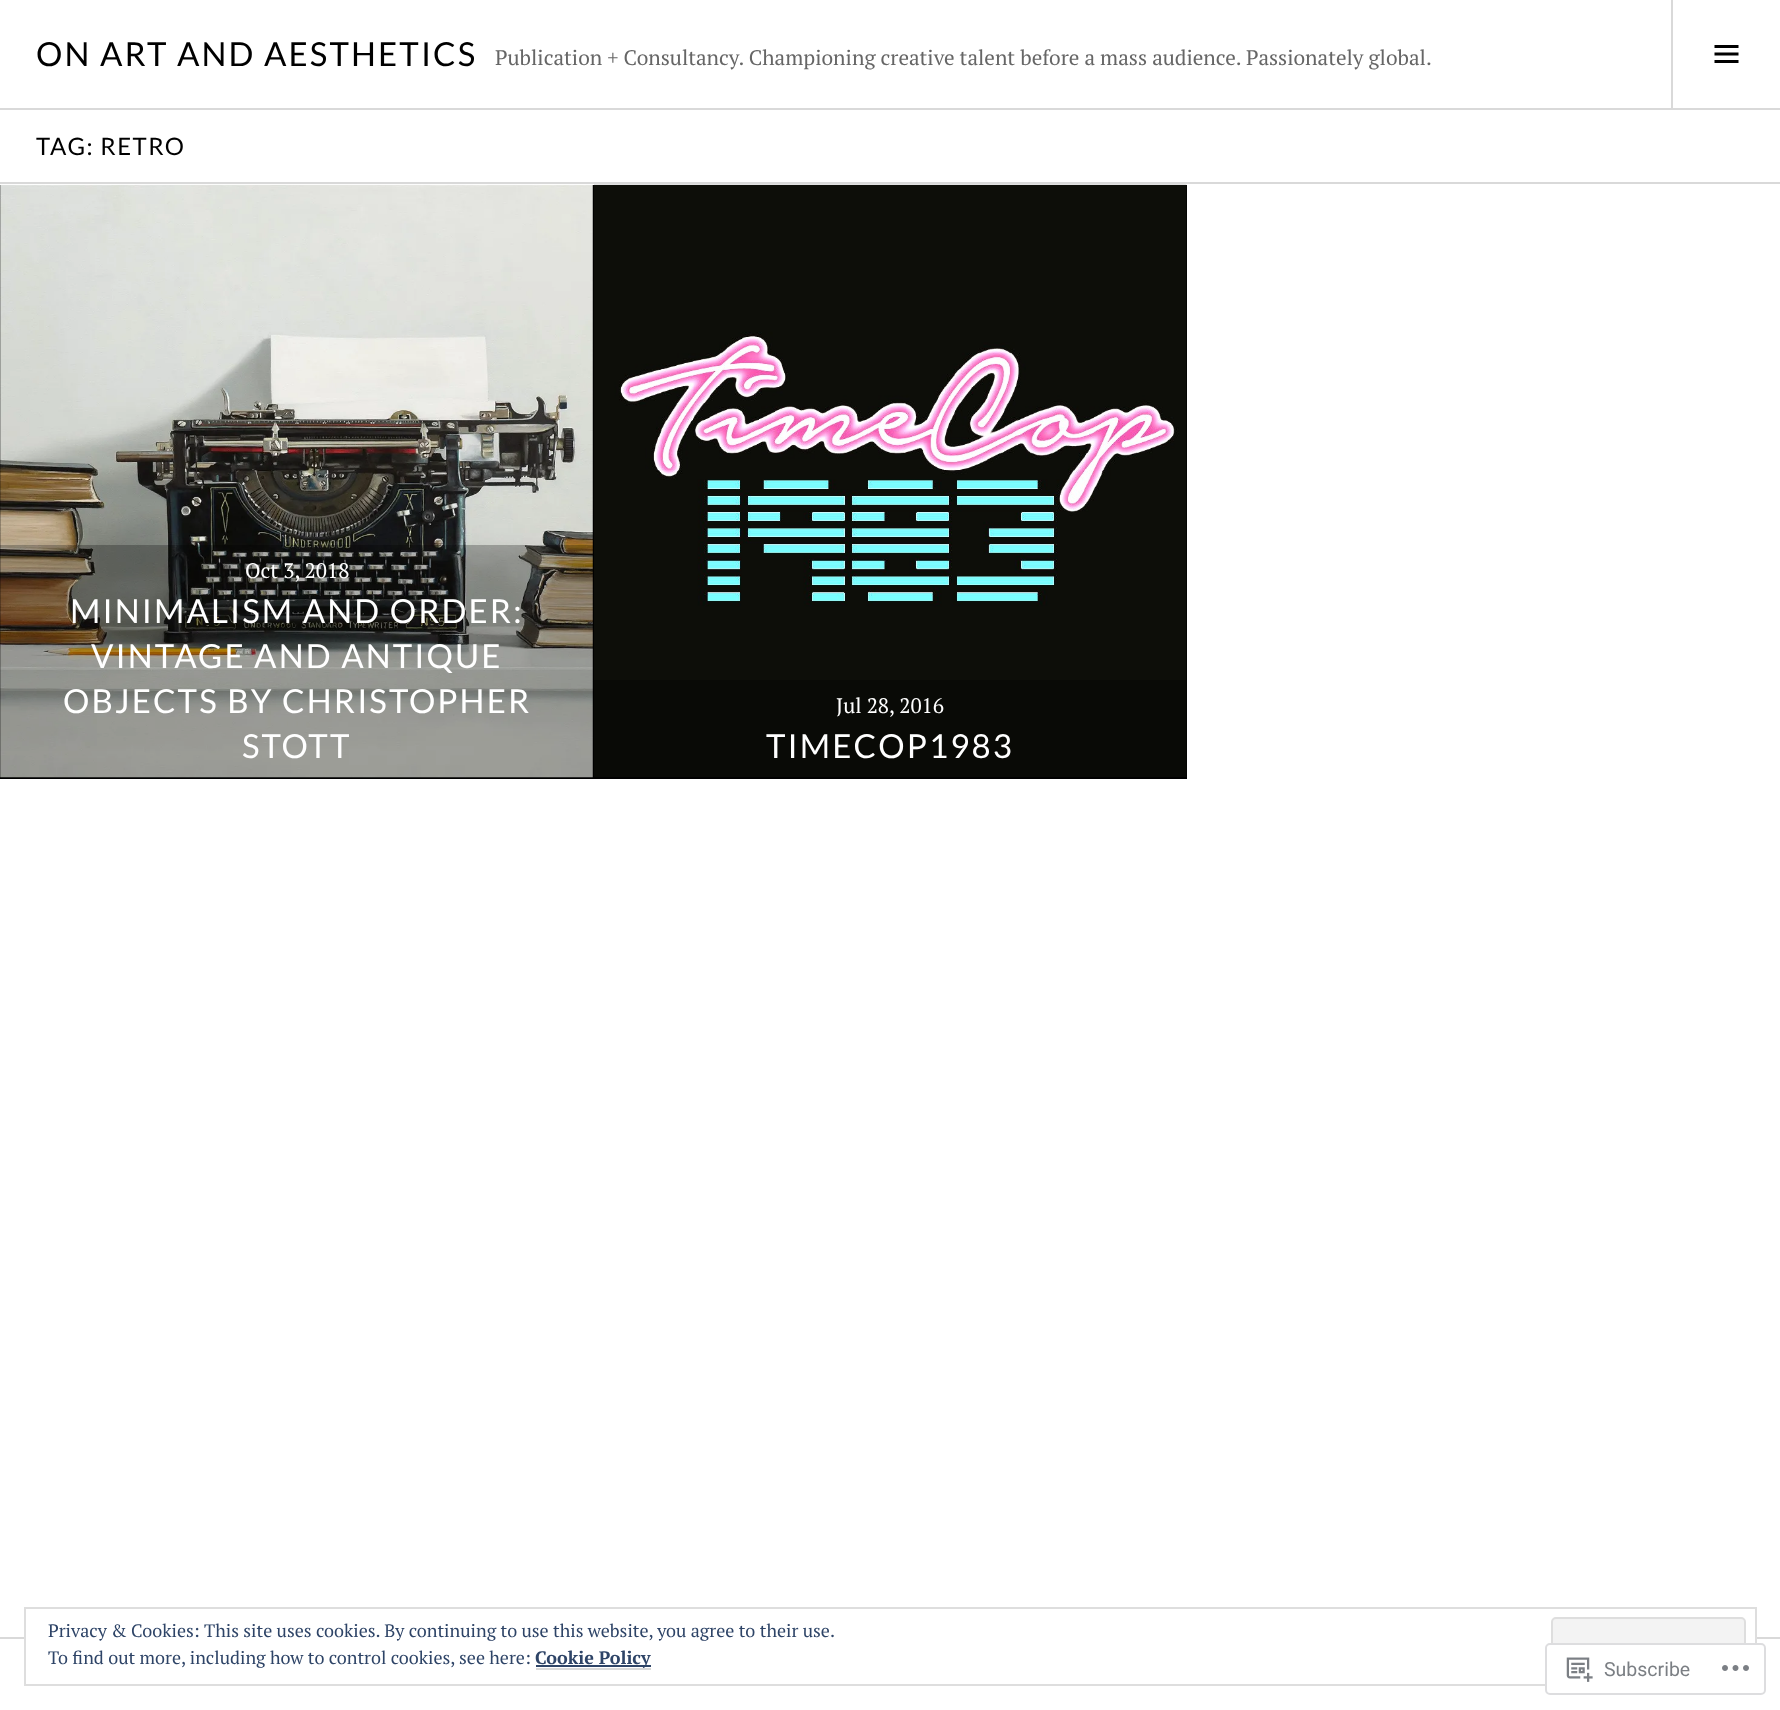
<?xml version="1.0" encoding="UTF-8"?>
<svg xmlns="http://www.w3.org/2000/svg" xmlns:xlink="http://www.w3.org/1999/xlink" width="1780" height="1710">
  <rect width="100%" height="100%" fill="#ffffff" />
  <rect y="108" width="1780" height="2" fill="#d9d9d9" />
  <rect x="1671" width="2" height="108" fill="#d9d9d9" />
  <image x="1714" y="45" width="25" height="18" xlink:href="image1.png" />
  <rect y="182" width="1780" height="2" fill="#d9d9d9" />
  <rect y="185" width="1187" height="594" fill="#000000" />
  <image x="0" y="184" width="593" height="594" xlink:href="image2.png" />
  <rect y="545" width="593" height="233" fill="#000000" fill-opacity="0.25" />
  <image x="594" y="184" width="593" height="593" xlink:href="image3.png" />
  <rect x="594" y="680" width="592" height="97" fill="#000000" fill-opacity="0.25" />
  <rect y="1637" width="1780" height="2" fill="#d9d9d9" />
  <rect x="26" y="1637" width="1729" height="2" fill="#ffffff" />
  <rect x="25" y="1608" width="1731" height="77" fill="none" stroke="#dedede" stroke-width="2" />
  <rect x="1552" y="1618" width="193" height="57" rx="4" fill="#f3f3f3" stroke="#dedede" stroke-width="2" />
  <rect x="536" y="1668" width="115" height="2" fill="#d9d9d9" />
  <rect x="536" y="1665" width="115" height="2" fill="#2e4467" />
  <rect x="1545" y="1643" width="221" height="52" rx="5" fill="#ffffff" fill-opacity="0.98" />
  <rect x="1546" y="1644" width="219" height="50" rx="4" fill="none" stroke="#dcdcde" stroke-opacity="0.98" stroke-width="2" />
  <image x="1566" y="1657" width="27" height="25" xlink:href="image4.png" />
  <image x="1722" y="1665" width="27" height="6" xlink:href="image5.png" />
  <text x="36" y="66" style="font-family: Lato; font-size: 33px; letter-spacing: 2.1px; fill: #000000">ON ART AND AESTHETICS</text>
  <text x="495" y="65" style="font-family: PT Serif; font-size: 21px; fill: #666666">Publication + Consultancy. Championing creative talent before a mass audience. Passionately global.</text>
  <text x="36" y="155" style="font-family: Lato; font-size: 24px; letter-spacing: 1.5px; fill: #000000">TAG: RETRO</text>
  <text x="245" y="578" style="font-family: PT Serif; font-size: 21px; fill: #ffffff">Oct 3, 2018</text>
  <text x="70" y="623" style="font-family: Lato; font-size: 33px; letter-spacing: 2.1px; fill: #ffffff">MINIMALISM AND ORDER:</text>
  <text x="91" y="668" style="font-family: Lato; font-size: 33px; letter-spacing: 2.1px; fill: #ffffff">VINTAGE AND ANTIQUE</text>
  <text x="63" y="713" style="font-family: Lato; font-size: 33px; letter-spacing: 2.1px; fill: #ffffff">OBJECTS BY CHRISTOPHER</text>
  <text x="242" y="758" style="font-family: Lato; font-size: 33px; letter-spacing: 2.1px; fill: #ffffff">STOTT</text>
  <text x="836" y="713" style="font-family: PT Serif; font-size: 21px; fill: #ffffff">Jul 28, 2016</text>
  <text x="766" y="758" style="font-family: Lato; font-size: 33px; letter-spacing: 2.1px; fill: #ffffff">TIMECOP1983</text>
  <text x="48" y="1637" style="font-family: PT Serif; font-size: 18px; fill: #2e4467">Privacy &amp; Cookies: This site uses cookies. By continuing to use this website, you agree to their use.</text>
  <text x="48" y="1664" style="font-family: PT Serif; font-size: 18px; fill: #2e4467">To find out more, including how to control cookies, see here:</text>
  <text x="535" y="1664" style="font-family: PT Serif; font-size: 18px; font-weight: bold; fill: #2e4467">Cookie Policy</text>
  <text x="1604" y="1676" style="font-family: Roboto; font-size: 19.5px; fill: #7b7f84">Subscribe</text>
</svg>
